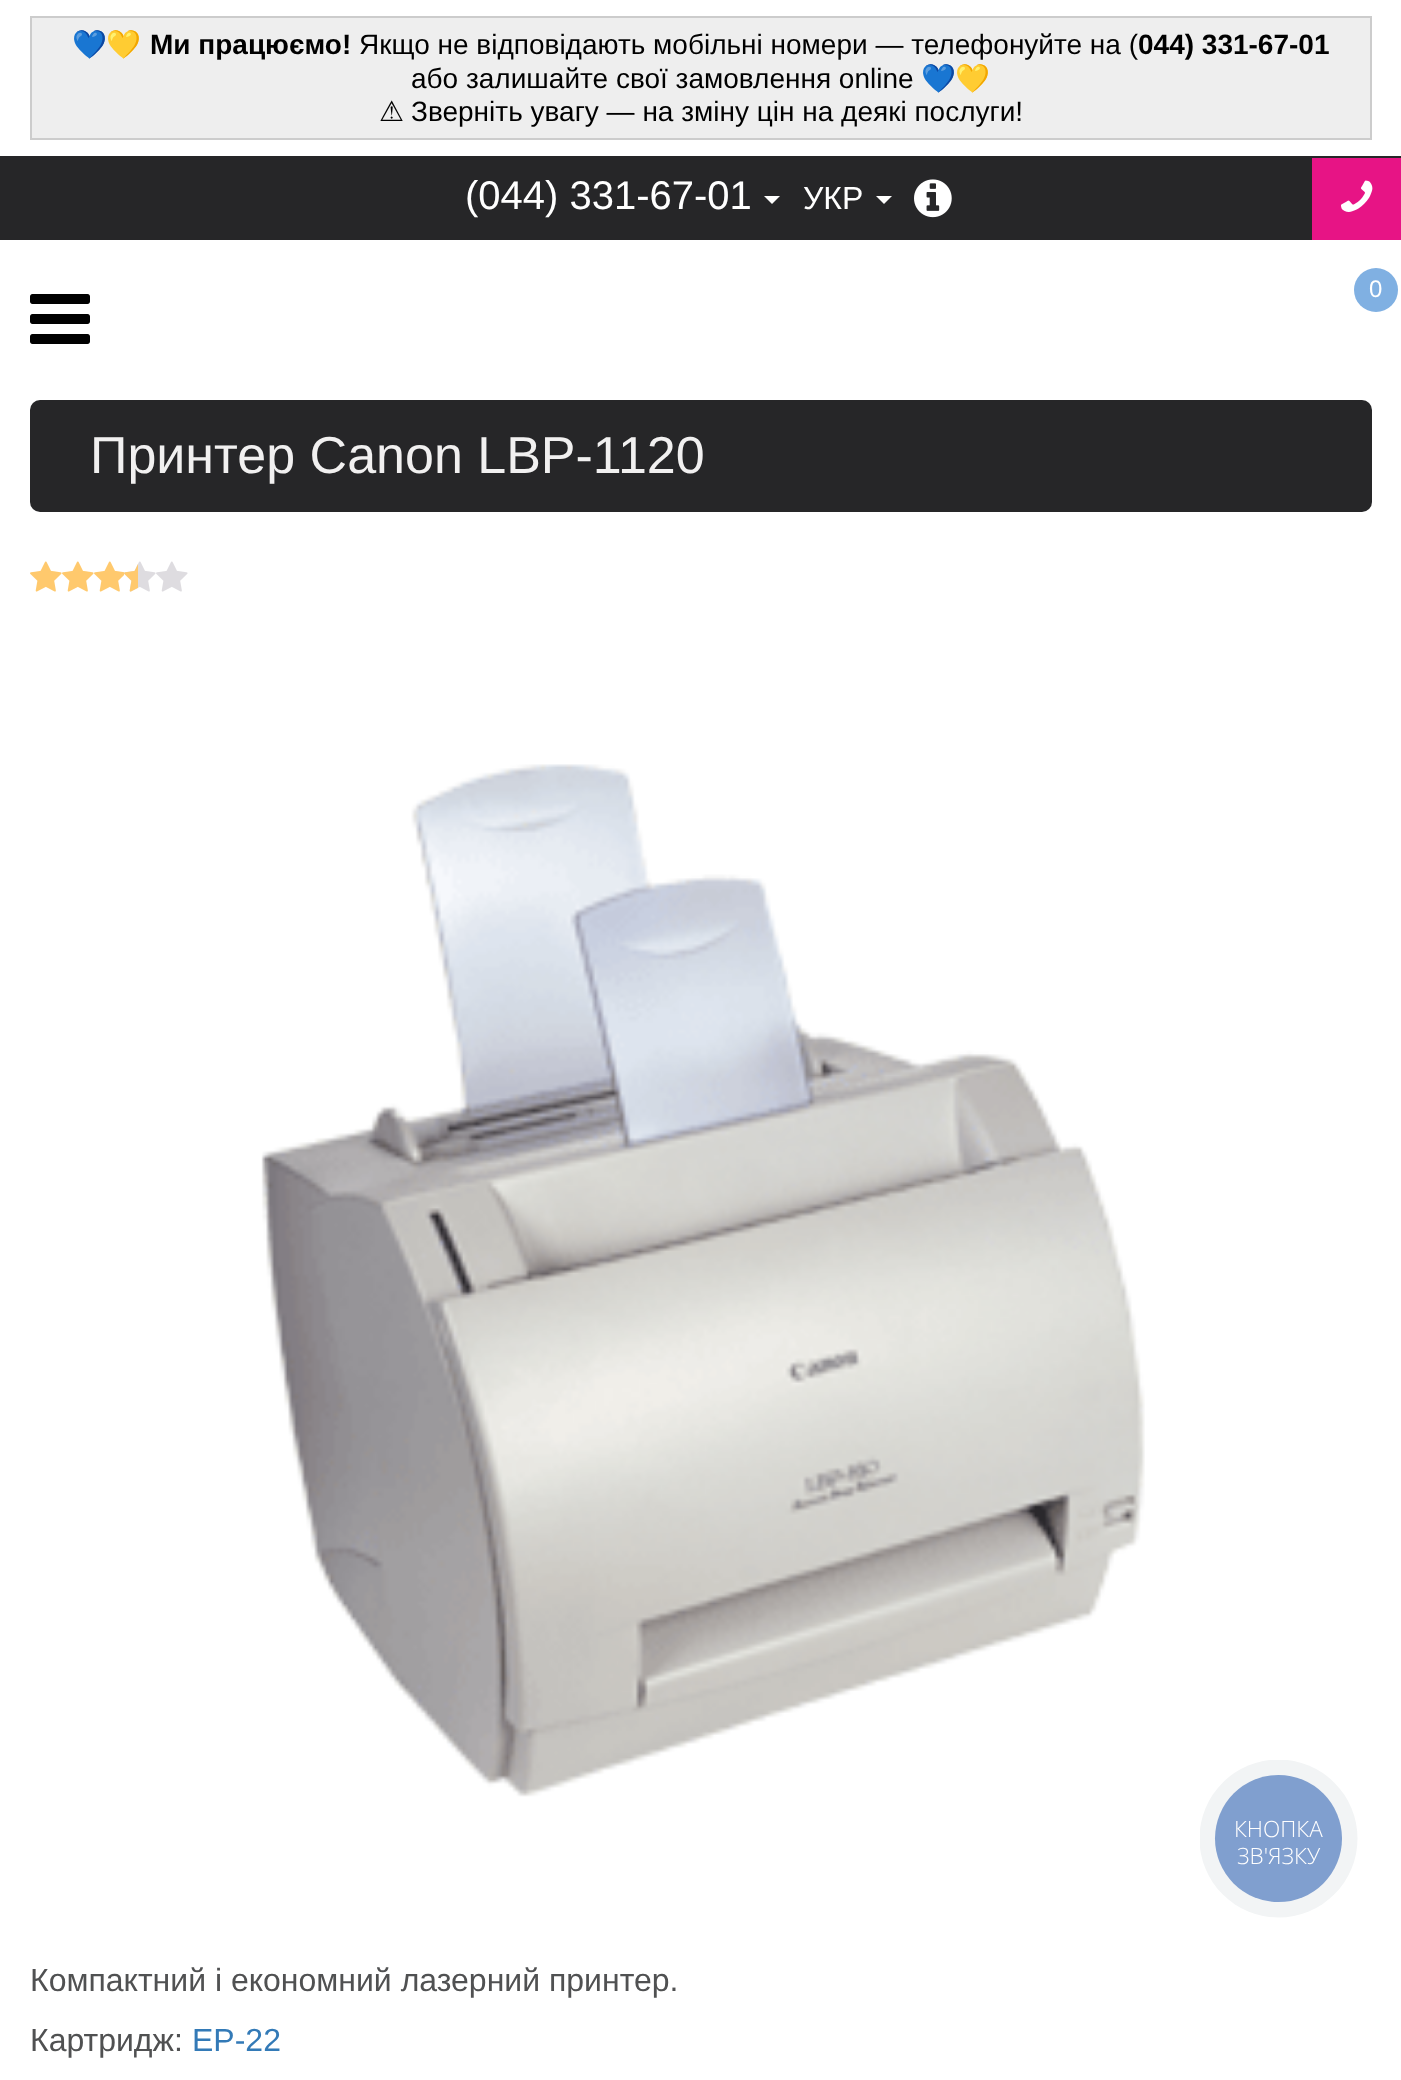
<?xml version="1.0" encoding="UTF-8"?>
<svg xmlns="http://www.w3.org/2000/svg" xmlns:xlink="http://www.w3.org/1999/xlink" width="1401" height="2080">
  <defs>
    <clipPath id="clip1"><rect x="1200" y="1760" width="158" height="158" /></clipPath>
  </defs>
  <rect width="100%" height="100%" fill="#ffffff" />
  <rect x="31" y="17" width="1340" height="122" fill="#eeeeee" stroke="#cccccc" stroke-width="2" />
  <rect y="156" width="1401" height="84" fill="#262628" />
  <path d="M 764 196 h 16 l -8 8 z" fill="#ffffff" />
  <path d="M 876 196 h 16 l -8 8 z" fill="#ffffff" />
  <image x="914" y="179" width="38" height="39" xlink:href="image1.png" />
  <rect x="1312" y="158" width="89" height="82" fill="#e71485" />
  <image x="1341" y="180" width="32" height="32" xlink:href="image2.png" />
  <circle cx="1376" cy="290" r="22" fill="#80b0e2" />
  <image x="30" y="294" width="60" height="50" xlink:href="image3.png" />
  <rect x="30" y="400" width="1342" height="112" rx="10" fill="#262628" />
  <image x="30" y="561" width="32" height="31" xlink:href="image4.png" />
  <image x="62" y="561" width="32" height="31" xlink:href="image4.png" />
  <image x="94" y="561" width="30" height="31" xlink:href="image5.png" />
  <image x="124" y="561" width="32" height="31" xlink:href="image6.png" />
  <image x="124" y="564" width="14" height="28" xlink:href="image7.png" />
  <image x="156" y="561" width="32" height="31" xlink:href="image6.png" />
  <image x="261" y="764" width="884" height="1033" xlink:href="image8.png" />
  <g clip-path="url(#clip1)">
    <circle cx="1278.5" cy="1838.5" r="79" fill="#f2f4f5" />
  </g>
  <circle cx="1278.5" cy="1838.5" r="63.5" fill="#809fcf" />
  <text x="72" y="54" style="font-family: Noto Color Emoji; font-size: 28px; font-weight: bold; fill: #000000">💙💛</text>
  <text x="150" y="54" style="font-family: Liberation Sans; font-size: 28px; font-weight: bold; fill: #000000">Ми працюємо!</text>
  <text x="359" y="54" style="font-family: Liberation Sans; font-size: 28px; fill: #000000">Якщо не відповідають мобільні номери — телефонуйте на (</text>
  <text x="1138" y="54" style="font-family: Liberation Sans; font-size: 28px; font-weight: bold; fill: #000000">044) 331-67-01</text>
  <text x="411" y="88" style="font-family: Liberation Sans; font-size: 28px; fill: #000000">або залишайте свої замовлення online</text>
  <text x="921" y="88" style="font-family: Noto Color Emoji; font-size: 28px; font-weight: bold; fill: #000000">💙💛</text>
  <text x="379" y="121" style="font-family: DejaVu Sans; font-size: 28px; fill: #000000">⚠</text>
  <text x="411" y="121" style="font-family: Liberation Sans; font-size: 28px; fill: #000000">Зверніть увагу — на зміну цін на деякі послуги!</text>
  <text x="465" y="209" style="font-family: Liberation Sans; font-size: 40px; fill: #ffffff">(044) 331-67-01</text>
  <text x="803" y="209" style="font-family: Liberation Sans; font-size: 32px; fill: #ffffff">УКР</text>
  <text x="1369" y="297" style="font-family: Liberation Sans; font-size: 24px; fill: #ffffff">0</text>
  <text x="90" y="473" style="font-family: Liberation Sans; font-size: 52px; fill: #f1f0f0">Принтер Canon LBP-1120</text>
  <text x="30" y="1991" style="font-family: Liberation Sans; font-size: 32px; fill: #505152">Компактний і економний лазерний принтер.</text>
  <text x="30" y="2051" style="font-family: Liberation Sans; font-size: 32px; fill: #505152">Картридж:</text>
  <text x="192" y="2051" style="font-family: Liberation Sans; font-size: 32px; fill: #337ab7">EP-22</text>
  <text x="1234" y="1837" style="font-family: Open Sans; font-size: 22.5px; font-weight: 300; fill: #ffffff">КНОПКА</text>
  <text x="1237" y="1864" style="font-family: Open Sans; font-size: 22.5px; font-weight: 300; fill: #ffffff">ЗВ'ЯЗКУ</text>
</svg>
